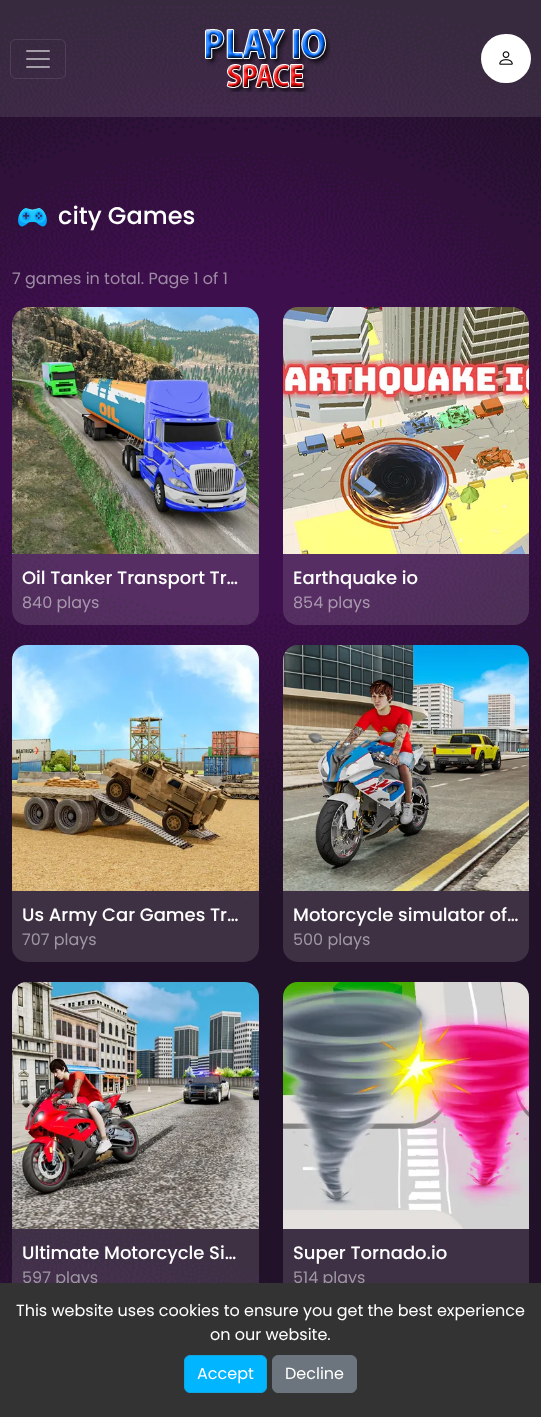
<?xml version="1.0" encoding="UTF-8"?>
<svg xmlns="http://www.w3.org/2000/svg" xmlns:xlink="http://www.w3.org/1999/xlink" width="541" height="1417">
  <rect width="100%" height="100%" fill="#ffffff" />
  <image x="0" y="0" width="541" height="1283" xlink:href="image1.png" />
  <rect width="541" height="117" fill="#ffffff" fill-opacity="0.1" />
  <rect x="10.5" y="39.5" width="55" height="39" rx="5.5" fill="none" stroke="#ffffff" stroke-opacity="0.1" />
  <image x="26" y="50" width="24" height="18" xlink:href="image2.png" />
  <image x="205" y="29" width="126" height="63" xlink:href="image3.png" />
  <rect x="481" y="34" width="50" height="49" rx="24.5" fill="#ffffff" />
  <image x="499" y="51" width="14" height="14" xlink:href="image4.png" />
  <image x="18" y="208" width="29" height="19" xlink:href="image5.png" />
  <path d="M 30 307 h 214 c 8.5 0 15 6.5 15 15 v 288 c 0 8.5 -6.5 15 -15 15 h -217 c -8.5 0 -15 -6.5 -15 -15 v -285 c 0 -10 8 -18 18 -18 z" fill="#e1e1e1" fill-opacity="0.15" />
  <image x="12" y="307" width="247" height="247" xlink:href="image6.png" />
  <path d="M 298 307 h 213 c 10 0 18 8 18 18 v 285 c 0 8.5 -6.5 15 -15 15 h -216 c -8.5 0 -15 -6.5 -15 -15 v -288 c 0 -8.5 6.5 -15 15 -15 z" fill="#e1e1e1" fill-opacity="0.15" />
  <image x="283" y="307" width="246" height="247" xlink:href="image7.png" />
  <rect x="12" y="645" width="247" height="317" rx="15" fill="#e1e1e1" fill-opacity="0.15" />
  <image x="12" y="645" width="247" height="246" xlink:href="image8.png" />
  <rect x="283" y="645" width="246" height="317" rx="15" fill="#e1e1e1" fill-opacity="0.15" />
  <image x="283" y="645" width="246" height="246" xlink:href="image9.png" />
  <rect x="12" y="982" width="247" height="318" rx="15" fill="#e1e1e1" fill-opacity="0.15" />
  <image x="12" y="982" width="247" height="247" xlink:href="image10.png" />
  <rect x="283" y="982" width="246" height="318" rx="15" fill="#3e3145" />
  <image x="283" y="982" width="246" height="247" xlink:href="image11.png" />
  <text x="58" y="224" style="font-family: Poppins; font-size: 24px; font-weight: 500; fill: #ffffff">city Games</text>
  <text x="12" y="284" style="font-family: Poppins; font-size: 16px; fill: #9f8da5">7 games in total. Page 1 of 1</text>
  <text x="22" y="584" style="font-family: Poppins; font-size: 18px; font-weight: 500; fill: #ffffff">Oil Tanker Transport Tr…</text>
  <text x="22" y="608" style="font-family: Poppins; font-size: 16px; fill: #a997ae">840 plays</text>
  <text x="293" y="584" style="font-family: Poppins; font-size: 18px; font-weight: 500; fill: #ffffff">Earthquake io</text>
  <text x="293" y="608" style="font-family: Poppins; font-size: 16px; fill: #a997ae">854 plays</text>
  <text x="22" y="921" style="font-family: Poppins; font-size: 18px; font-weight: 500; fill: #ffffff">Us Army Car Games Tr…</text>
  <text x="22" y="945" style="font-family: Poppins; font-size: 16px; fill: #9e98a2">707 plays</text>
  <text x="293" y="921" style="font-family: Poppins; font-size: 18px; font-weight: 500; fill: #ffffff">Motorcycle simulator of…</text>
  <text x="293" y="945" style="font-family: Poppins; font-size: 16px; fill: #9e98a2">500 plays</text>
  <text x="22" y="1259" style="font-family: Poppins; font-size: 18px; font-weight: 500; fill: #ffffff">Ultimate Motorcycle Si…</text>
  <text x="22" y="1283" style="font-family: Poppins; font-size: 16px; fill: #9e98a2">597 plays</text>
  <text x="293" y="1259" style="font-family: Poppins; font-size: 18px; font-weight: 500; fill: #ffffff">Super Tornado.io</text>
  <text x="293" y="1283" style="font-family: Poppins; font-size: 16px; fill: #9e98a2">514 plays</text>
  <rect y="1283" width="541" height="134" fill="#333333" />
  <text x="16" y="1316" style="font-family: Poppins; font-size: 16px; fill: #ffffff">This website uses cookies to ensure you get the best experience</text>
  <text x="210" y="1340" style="font-family: Poppins; font-size: 16px; fill: #ffffff">on our website.</text>
  <rect x="184.5" y="1355.5" width="82" height="37" rx="5.5" fill="#01b6ff" stroke="#13a5df" />
  <text x="197" y="1379" style="font-family: Poppins; font-size: 16px; fill: #ffffff">Accept</text>
  <rect x="272.5" y="1355.5" width="84" height="37" rx="5.5" fill="#6c757d" stroke="#6c757d" />
  <text x="285" y="1379" style="font-family: Poppins; font-size: 16px; fill: #ffffff">Decline</text>
</svg>
